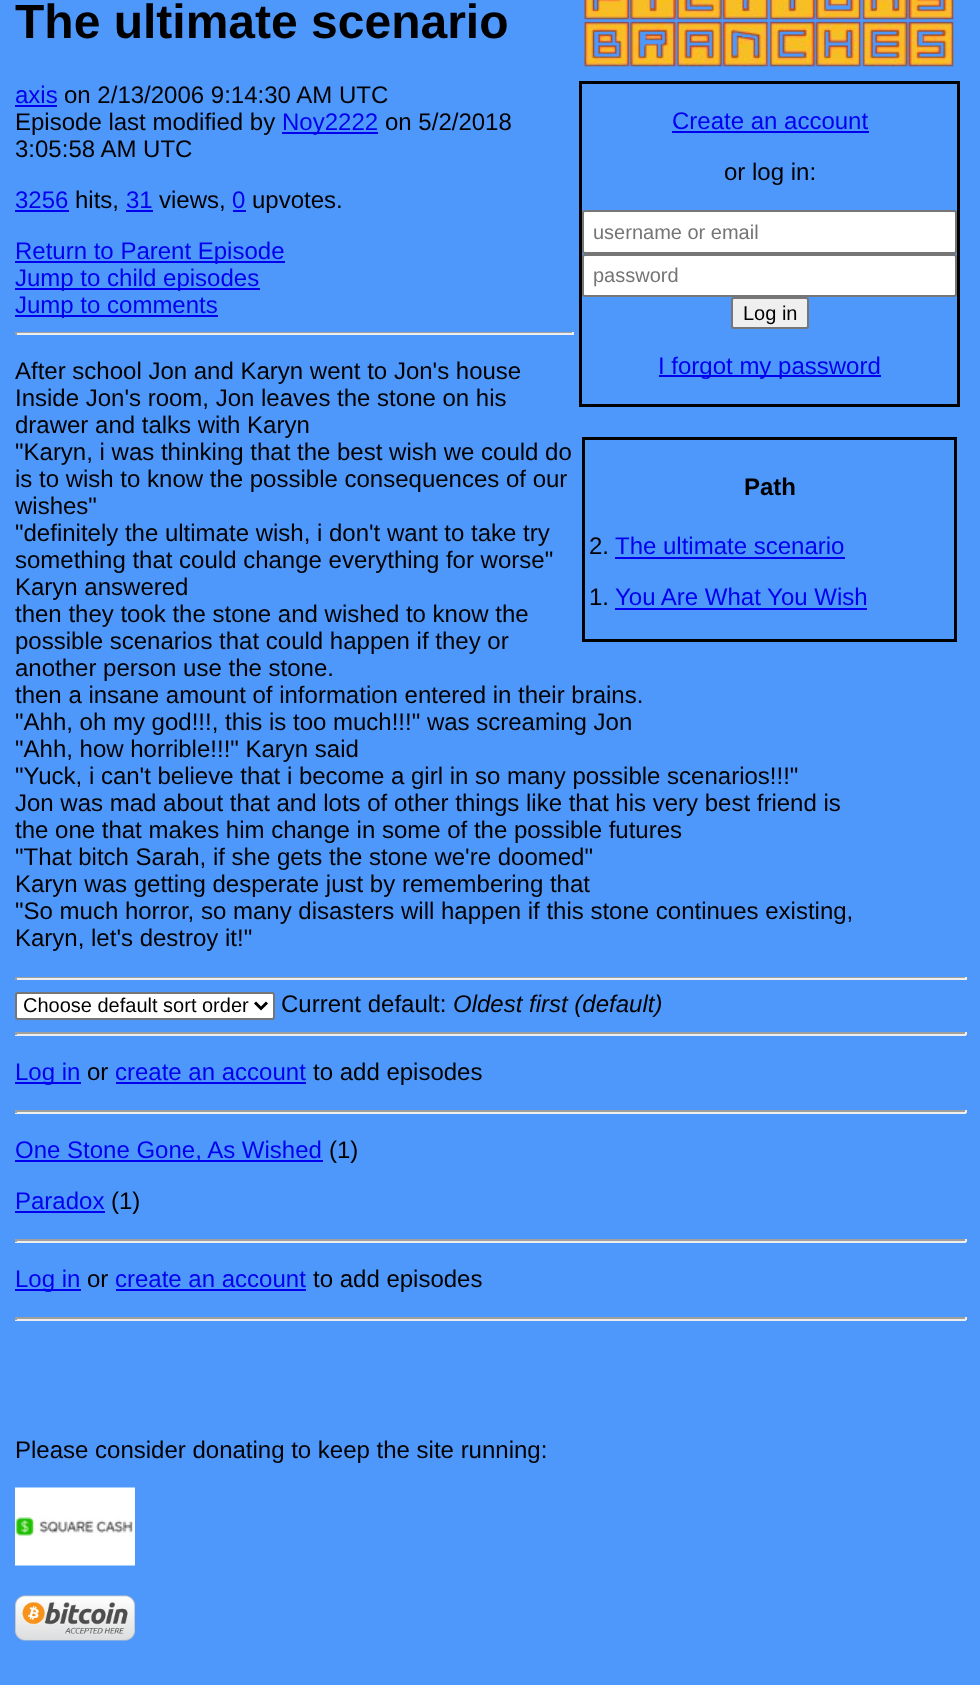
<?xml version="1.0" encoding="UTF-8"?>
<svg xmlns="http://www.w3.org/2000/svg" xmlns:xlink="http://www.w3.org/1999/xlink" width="980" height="1685">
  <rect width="100%" height="100%" fill="#4e98fc" />
  <rect x="15" y="105" width="42" height="2" fill="#0000ee" />
  <rect x="282" y="132" width="96" height="2" fill="#0000ee" />
  <rect x="15" y="210" width="54" height="2" fill="#0000ee" />
  <rect x="126" y="210" width="27" height="2" fill="#0000ee" />
  <rect x="233" y="210" width="13" height="2" fill="#0000ee" />
  <rect x="15" y="261" width="270" height="2" fill="#0000ee" />
  <rect x="15" y="288" width="245" height="2" fill="#0000ee" />
  <rect x="15" y="315" width="203" height="2" fill="#0000ee" />
  <rect x="15" y="332" width="558" height="1" fill="#9f9f9f" />
  <rect x="572" y="332" width="2" height="3" fill="#eeeeee" />
  <rect x="15" y="333" width="558" height="2" fill="#eeeeee" />
  <rect x="15" y="332" width="2" height="3" fill="#9f9f9f" />
  <rect x="15" y="977" width="951" height="1" fill="#9f9f9f" />
  <rect x="965" y="977" width="2" height="3" fill="#eeeeee" />
  <rect x="15" y="978" width="951" height="2" fill="#eeeeee" />
  <rect x="15" y="977" width="2" height="3" fill="#9f9f9f" />
  <rect x="16" y="993" width="258" height="26" rx="2" fill="#ffffff" stroke="#767676" stroke-width="2" />
  <path d="M 255 1002.5 l 6 6 l 6 -6" fill="none" stroke="#000000" stroke-width="3" />
  <rect x="15" y="1032" width="951" height="2" fill="#9f9f9f" />
  <rect x="965" y="1032" width="2" height="3" fill="#eeeeee" />
  <rect x="15" y="1034" width="951" height="2" fill="#eeeeee" />
  <rect x="15" y="1032" width="2" height="3" fill="#9f9f9f" />
  <rect x="15" y="1082" width="66" height="2" fill="#0000ee" />
  <rect x="116" y="1082" width="190" height="2" fill="#0000ee" />
  <rect x="15" y="1110" width="951" height="2" fill="#9f9f9f" />
  <rect x="965" y="1110" width="2" height="3" fill="#eeeeee" />
  <rect x="15" y="1112" width="951" height="2" fill="#eeeeee" />
  <rect x="15" y="1110" width="2" height="3" fill="#9f9f9f" />
  <rect x="15" y="1160" width="308" height="2" fill="#0000ee" />
  <rect x="15" y="1211" width="90" height="2" fill="#0000ee" />
  <rect x="15" y="1239" width="951" height="2" fill="#9f9f9f" />
  <rect x="965" y="1239" width="2" height="3" fill="#eeeeee" />
  <rect x="15" y="1241" width="951" height="2" fill="#eeeeee" />
  <rect x="15" y="1239" width="2" height="3" fill="#9f9f9f" />
  <rect x="15" y="1289" width="66" height="2" fill="#0000ee" />
  <rect x="116" y="1289" width="190" height="2" fill="#0000ee" />
  <rect x="15" y="1317" width="951" height="2" fill="#9f9f9f" />
  <rect x="965" y="1317" width="2" height="3" fill="#eeeeee" />
  <rect x="15" y="1319" width="951" height="2" fill="#eeeeee" />
  <rect x="15" y="1317" width="2" height="3" fill="#9f9f9f" />
  <image x="584" y="0" width="370" height="67" xlink:href="image1.png" />
  <rect x="580.5" y="82.5" width="378" height="323" fill="none" stroke="#000000" stroke-width="3" />
  <rect x="672" y="131" width="197" height="2" fill="#0000ee" />
  <rect x="583" y="211" width="373" height="42" rx="2" fill="#ffffff" stroke="#767676" stroke-width="2" />
  <rect x="583" y="255" width="373" height="41" rx="2" fill="#ffffff" stroke="#767676" stroke-width="2" />
  <rect x="732" y="298" width="76" height="30" rx="2" fill="#efefef" stroke="#767676" stroke-width="2" />
  <rect x="659" y="375" width="222" height="2" fill="#0000ee" />
  <rect x="583.5" y="438.5" width="372" height="202" fill="none" stroke="#000000" stroke-width="3" />
  <rect x="615" y="557" width="230" height="2" fill="#0000ee" />
  <rect x="615" y="608" width="252" height="2" fill="#0000ee" />
  <image x="15" y="1487" width="120" height="79" xlink:href="image2.png" />
  <image x="15" y="1595" width="120" height="46" xlink:href="image3.png" />
  <text x="15" y="38" style="font-family: Liberation Sans; font-size: 48px; font-weight: bold; fill: #000000">The ultimate scenario</text>
  <text x="15" y="103" style="font-family: Liberation Sans; font-size: 24px; fill: #0000ee">axis</text>
  <text x="64" y="103" style="font-family: Liberation Sans; font-size: 24px; fill: #000000">on 2/13/2006 9:14:30 AM UTC</text>
  <text x="15" y="130" style="font-family: Liberation Sans; font-size: 24px; fill: #000000">Episode last modified by</text>
  <text x="282" y="130" style="font-family: Liberation Sans; font-size: 24px; fill: #0000ee">Noy2222</text>
  <text x="385" y="130" style="font-family: Liberation Sans; font-size: 24px; fill: #000000">on 5/2/2018</text>
  <text x="15" y="157" style="font-family: Liberation Sans; font-size: 24px; fill: #000000">3:05:58 AM UTC</text>
  <text x="15" y="208" style="font-family: Liberation Sans; font-size: 24px; fill: #0000ee">3256</text>
  <text x="75" y="208" style="font-family: Liberation Sans; font-size: 24px; fill: #000000">hits,</text>
  <text x="126" y="208" style="font-family: Liberation Sans; font-size: 24px; fill: #0000ee">31</text>
  <text x="159" y="208" style="font-family: Liberation Sans; font-size: 24px; fill: #000000">views,</text>
  <text x="232" y="208" style="font-family: Liberation Sans; font-size: 24px; fill: #0000ee">0</text>
  <text x="252" y="208" style="font-family: Liberation Sans; font-size: 24px; fill: #000000">upvotes.</text>
  <text x="15" y="259" style="font-family: Liberation Sans; font-size: 24px; fill: #0000ee">Return to Parent Episode</text>
  <text x="15" y="286" style="font-family: Liberation Sans; font-size: 24px; fill: #0000ee">Jump to child episodes</text>
  <text x="15" y="313" style="font-family: Liberation Sans; font-size: 24px; fill: #0000ee">Jump to comments</text>
  <text x="15" y="379" style="font-family: Liberation Sans; font-size: 24px; fill: #000000">After school Jon and Karyn went to Jon's house</text>
  <text x="15" y="406" style="font-family: Liberation Sans; font-size: 24px; fill: #000000">Inside Jon's room, Jon leaves the stone on his</text>
  <text x="15" y="433" style="font-family: Liberation Sans; font-size: 24px; fill: #000000">drawer and talks with Karyn</text>
  <text x="15" y="460" style="font-family: Liberation Sans; font-size: 24px; fill: #000000">"Karyn, i was thinking that the best wish we could do</text>
  <text x="15" y="487" style="font-family: Liberation Sans; font-size: 24px; fill: #000000">is to wish to know the possible consequences of our</text>
  <text x="15" y="514" style="font-family: Liberation Sans; font-size: 24px; fill: #000000">wishes"</text>
  <text x="15" y="541" style="font-family: Liberation Sans; font-size: 24px; fill: #000000">"definitely the ultimate wish, i don't want to take try</text>
  <text x="15" y="568" style="font-family: Liberation Sans; font-size: 24px; fill: #000000">something that could change everything for worse"</text>
  <text x="15" y="595" style="font-family: Liberation Sans; font-size: 24px; fill: #000000">Karyn answered</text>
  <text x="15" y="622" style="font-family: Liberation Sans; font-size: 24px; fill: #000000">then they took the stone and wished to know the</text>
  <text x="15" y="649" style="font-family: Liberation Sans; font-size: 24px; fill: #000000">possible scenarios that could happen if they or</text>
  <text x="15" y="676" style="font-family: Liberation Sans; font-size: 24px; fill: #000000">another person use the stone.</text>
  <text x="15" y="703" style="font-family: Liberation Sans; font-size: 24px; fill: #000000">then a insane amount of information entered in their brains.</text>
  <text x="15" y="730" style="font-family: Liberation Sans; font-size: 24px; fill: #000000">"Ahh, oh my god!!!, this is too much!!!" was screaming Jon</text>
  <text x="15" y="757" style="font-family: Liberation Sans; font-size: 24px; fill: #000000">"Ahh, how horrible!!!" Karyn said</text>
  <text x="15" y="784" style="font-family: Liberation Sans; font-size: 24px; fill: #000000">"Yuck, i can't believe that i become a girl in so many possible scenarios!!!"</text>
  <text x="15" y="811" style="font-family: Liberation Sans; font-size: 24px; fill: #000000">Jon was mad about that and lots of other things like that his very best friend is</text>
  <text x="15" y="838" style="font-family: Liberation Sans; font-size: 24px; fill: #000000">the one that makes him change in some of the possible futures</text>
  <text x="15" y="865" style="font-family: Liberation Sans; font-size: 24px; fill: #000000">"That bitch Sarah, if she gets the stone we're doomed"</text>
  <text x="15" y="892" style="font-family: Liberation Sans; font-size: 24px; fill: #000000">Karyn was getting desperate just by remembering that</text>
  <text x="15" y="919" style="font-family: Liberation Sans; font-size: 24px; fill: #000000">"So much horror, so many disasters will happen if this stone continues existing,</text>
  <text x="15" y="946" style="font-family: Liberation Sans; font-size: 24px; fill: #000000">Karyn, let's destroy it!"</text>
  <text x="23" y="1012" style="font-family: Liberation Sans; font-size: 20px; fill: #000000">Choose default sort order</text>
  <text x="281" y="1012" style="font-family: Liberation Sans; font-size: 24px; fill: #000000">Current default:</text>
  <text x="453" y="1012" style="font-family: Liberation Sans; font-size: 24px; font-style: italic; fill: #000000">Oldest first (default)</text>
  <text x="15" y="1080" style="font-family: Liberation Sans; font-size: 24px; fill: #0000ee">Log in</text>
  <text x="87" y="1080" style="font-family: Liberation Sans; font-size: 24px; fill: #000000">or</text>
  <text x="115" y="1080" style="font-family: Liberation Sans; font-size: 24px; fill: #0000ee">create an account</text>
  <text x="313" y="1080" style="font-family: Liberation Sans; font-size: 24px; fill: #000000">to add episodes</text>
  <text x="15" y="1158" style="font-family: Liberation Sans; font-size: 24px; fill: #0000ee">One Stone Gone, As Wished</text>
  <text x="329" y="1158" style="font-family: Liberation Sans; font-size: 24px; fill: #000000">(1)</text>
  <text x="15" y="1209" style="font-family: Liberation Sans; font-size: 24px; fill: #0000ee">Paradox</text>
  <text x="111" y="1209" style="font-family: Liberation Sans; font-size: 24px; fill: #000000">(1)</text>
  <text x="15" y="1287" style="font-family: Liberation Sans; font-size: 24px; fill: #0000ee">Log in</text>
  <text x="87" y="1287" style="font-family: Liberation Sans; font-size: 24px; fill: #000000">or</text>
  <text x="115" y="1287" style="font-family: Liberation Sans; font-size: 24px; fill: #0000ee">create an account</text>
  <text x="313" y="1287" style="font-family: Liberation Sans; font-size: 24px; fill: #000000">to add episodes</text>
  <text x="672" y="129" style="font-family: Liberation Sans; font-size: 24px; fill: #0000ee">Create an account</text>
  <text x="724" y="180" style="font-family: Liberation Sans; font-size: 24px; fill: #000000">or log in:</text>
  <text x="593" y="239" style="font-family: Liberation Sans; font-size: 20px; fill: #757575">username or email</text>
  <text x="593" y="282" style="font-family: Liberation Sans; font-size: 20px; fill: #757575">password</text>
  <text x="743" y="320" style="font-family: Liberation Sans; font-size: 20px; fill: #000000">Log in</text>
  <text x="658" y="374" style="font-family: Liberation Sans; font-size: 24px; fill: #0000ee">I forgot my password</text>
  <text x="744" y="495" style="font-family: Liberation Sans; font-size: 24px; font-weight: bold; fill: #000000">Path</text>
  <text x="589" y="554" style="font-family: Liberation Sans; font-size: 24px; fill: #000000">2.</text>
  <text x="615" y="554" style="font-family: Liberation Sans; font-size: 24px; fill: #0000ee">The ultimate scenario</text>
  <text x="589" y="605" style="font-family: Liberation Sans; font-size: 24px; fill: #000000">1.</text>
  <text x="615" y="605" style="font-family: Liberation Sans; font-size: 24px; fill: #0000ee">You Are What You Wish</text>
  <text x="15" y="1458" style="font-family: Liberation Sans; font-size: 24px; fill: #000000">Please consider donating to keep the site running:</text>
</svg>
